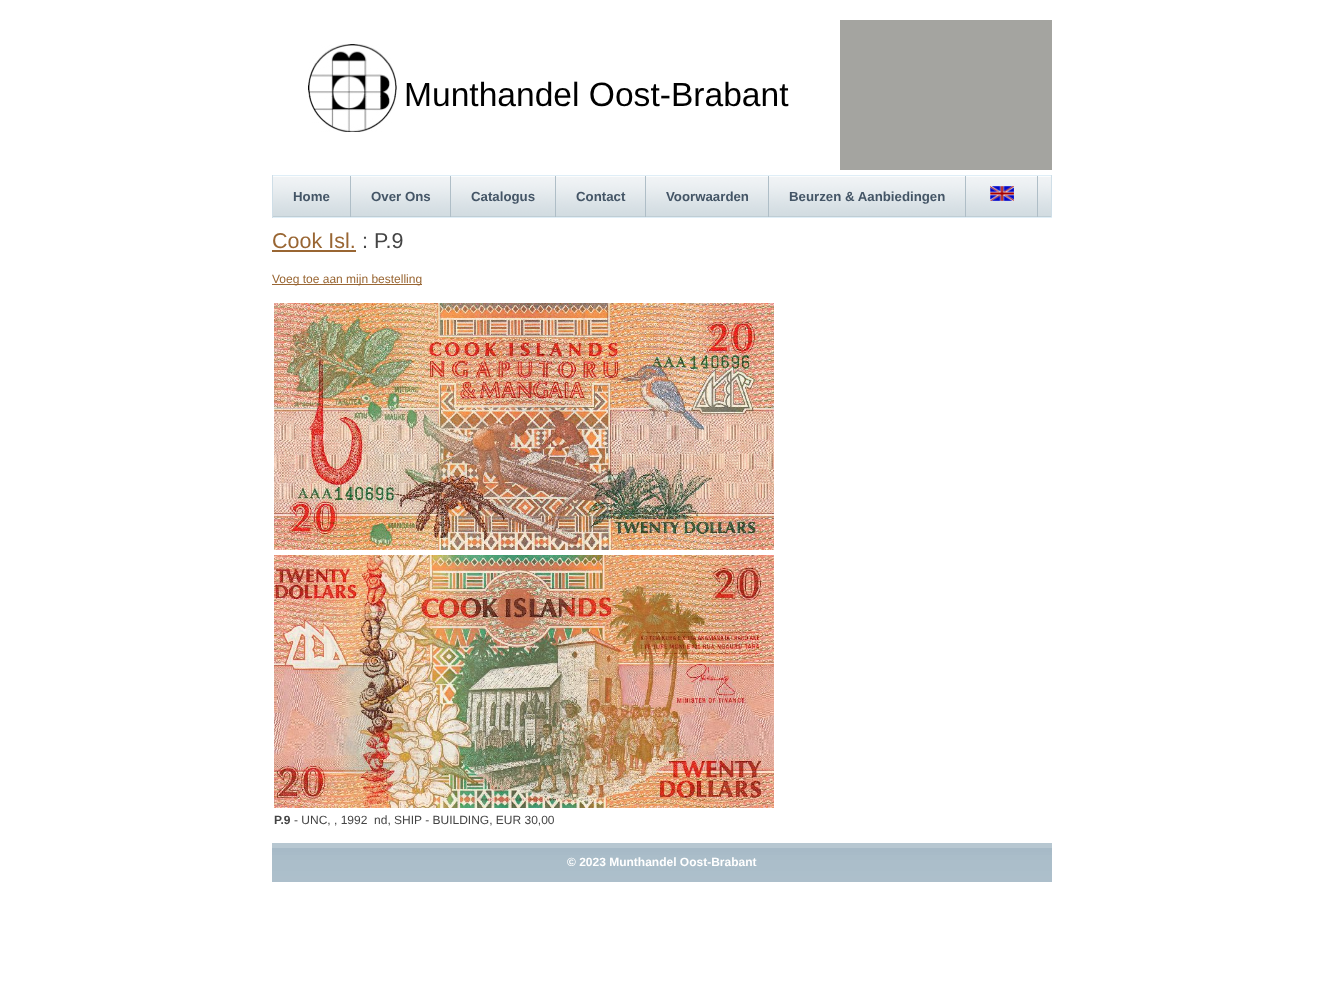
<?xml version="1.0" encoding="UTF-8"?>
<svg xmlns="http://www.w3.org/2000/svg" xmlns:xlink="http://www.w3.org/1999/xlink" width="1324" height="983">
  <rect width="100%" height="100%" fill="#ffffff" />
  <image x="308" y="44" width="89" height="88" xlink:href="image1.png" />
  <rect x="840" y="20" width="212" height="150" fill="#a4a4a0" />
  <image x="1038" y="176" width="13" height="41" xlink:href="image2.png" />
  <rect x="272" y="175" width="780" height="1" fill="#dfeef7" />
  <rect x="1051" y="175" width="1" height="43" fill="#cfdee7" />
  <rect x="272" y="217" width="780" height="1" fill="#dfeef7" />
  <rect x="272" y="175" width="1" height="43" fill="#cfdee7" />
  <image x="273" y="176" width="77" height="41" xlink:href="image3.png" />
  <rect x="350" y="176" width="1" height="41" fill="#afbec7" />
  <image x="351" y="176" width="99" height="41" xlink:href="image4.png" />
  <rect x="450" y="176" width="1" height="41" fill="#afbec7" />
  <image x="451" y="176" width="104" height="41" xlink:href="image5.png" />
  <rect x="555" y="176" width="1" height="41" fill="#afbec7" />
  <image x="556" y="176" width="89" height="41" xlink:href="image6.png" />
  <rect x="645" y="176" width="1" height="41" fill="#afbec7" />
  <image x="646" y="176" width="122" height="41" xlink:href="image7.png" />
  <rect x="768" y="176" width="1" height="41" fill="#afbec7" />
  <image x="769" y="176" width="196" height="41" xlink:href="image8.png" />
  <rect x="965" y="176" width="1" height="41" fill="#afbec7" />
  <image x="966" y="176" width="71" height="41" xlink:href="image9.png" />
  <rect x="1037" y="176" width="1" height="41" fill="#afbec7" />
  <image x="990" y="186" width="24" height="15" xlink:href="image10.png" />
  <rect x="272" y="250" width="84" height="2" fill="#996633" />
  <rect x="272" y="284" width="150" height="1" fill="#996633" />
  <image x="274" y="303" width="500" height="247" xlink:href="image11.png" />
  <image x="274" y="555" width="500" height="253" xlink:href="image12.png" />
  <image x="272" y="843" width="780" height="39" xlink:href="image13.png" />
  <text x="404" y="106" style="font-family: Liberation Sans; font-size: 33.6px; fill: #000000">Munthandel Oost-Brabant</text>
  <text x="293" y="201" style="font-family: Liberation Sans; font-size: 13.25px; font-weight: bold; fill: #445566">Home</text>
  <text x="371" y="201" style="font-family: Liberation Sans; font-size: 13.25px; font-weight: bold; fill: #445566">Over Ons</text>
  <text x="471" y="201" style="font-family: Liberation Sans; font-size: 13.25px; font-weight: bold; fill: #445566">Catalogus</text>
  <text x="576" y="201" style="font-family: Liberation Sans; font-size: 13.25px; font-weight: bold; fill: #445566">Contact</text>
  <text x="666" y="201" style="font-family: Liberation Sans; font-size: 13.25px; font-weight: bold; fill: #445566">Voorwaarden</text>
  <text x="789" y="201" style="font-family: Liberation Sans; font-size: 13.25px; font-weight: bold; fill: #445566">Beurzen &amp; Aanbiedingen</text>
  <text x="272" y="248" style="font-family: Liberation Sans; font-size: 21.5px; fill: #996633">Cook Isl.</text>
  <text x="362" y="248" style="font-family: Liberation Sans; font-size: 21.5px; fill: #444444">: P.9</text>
  <text x="272" y="283" style="font-family: Liberation Sans; font-size: 12px; fill: #996633">Voeg toe aan mijn bestelling</text>
  <text x="274" y="824" style="font-family: Liberation Sans; font-size: 12px; font-weight: bold; fill: #444444">P.9</text>
  <text x="294" y="824" style="font-family: Liberation Sans; font-size: 12px; fill: #444444" xml:space="preserve">- UNC, , 1992  nd, SHIP - BUILDING, EUR 30,00</text>
  <text x="567" y="866" style="font-family: Liberation Sans; font-size: 12px; font-weight: bold; fill: #ffffff">© 2023 Munthandel Oost-Brabant</text>
</svg>
